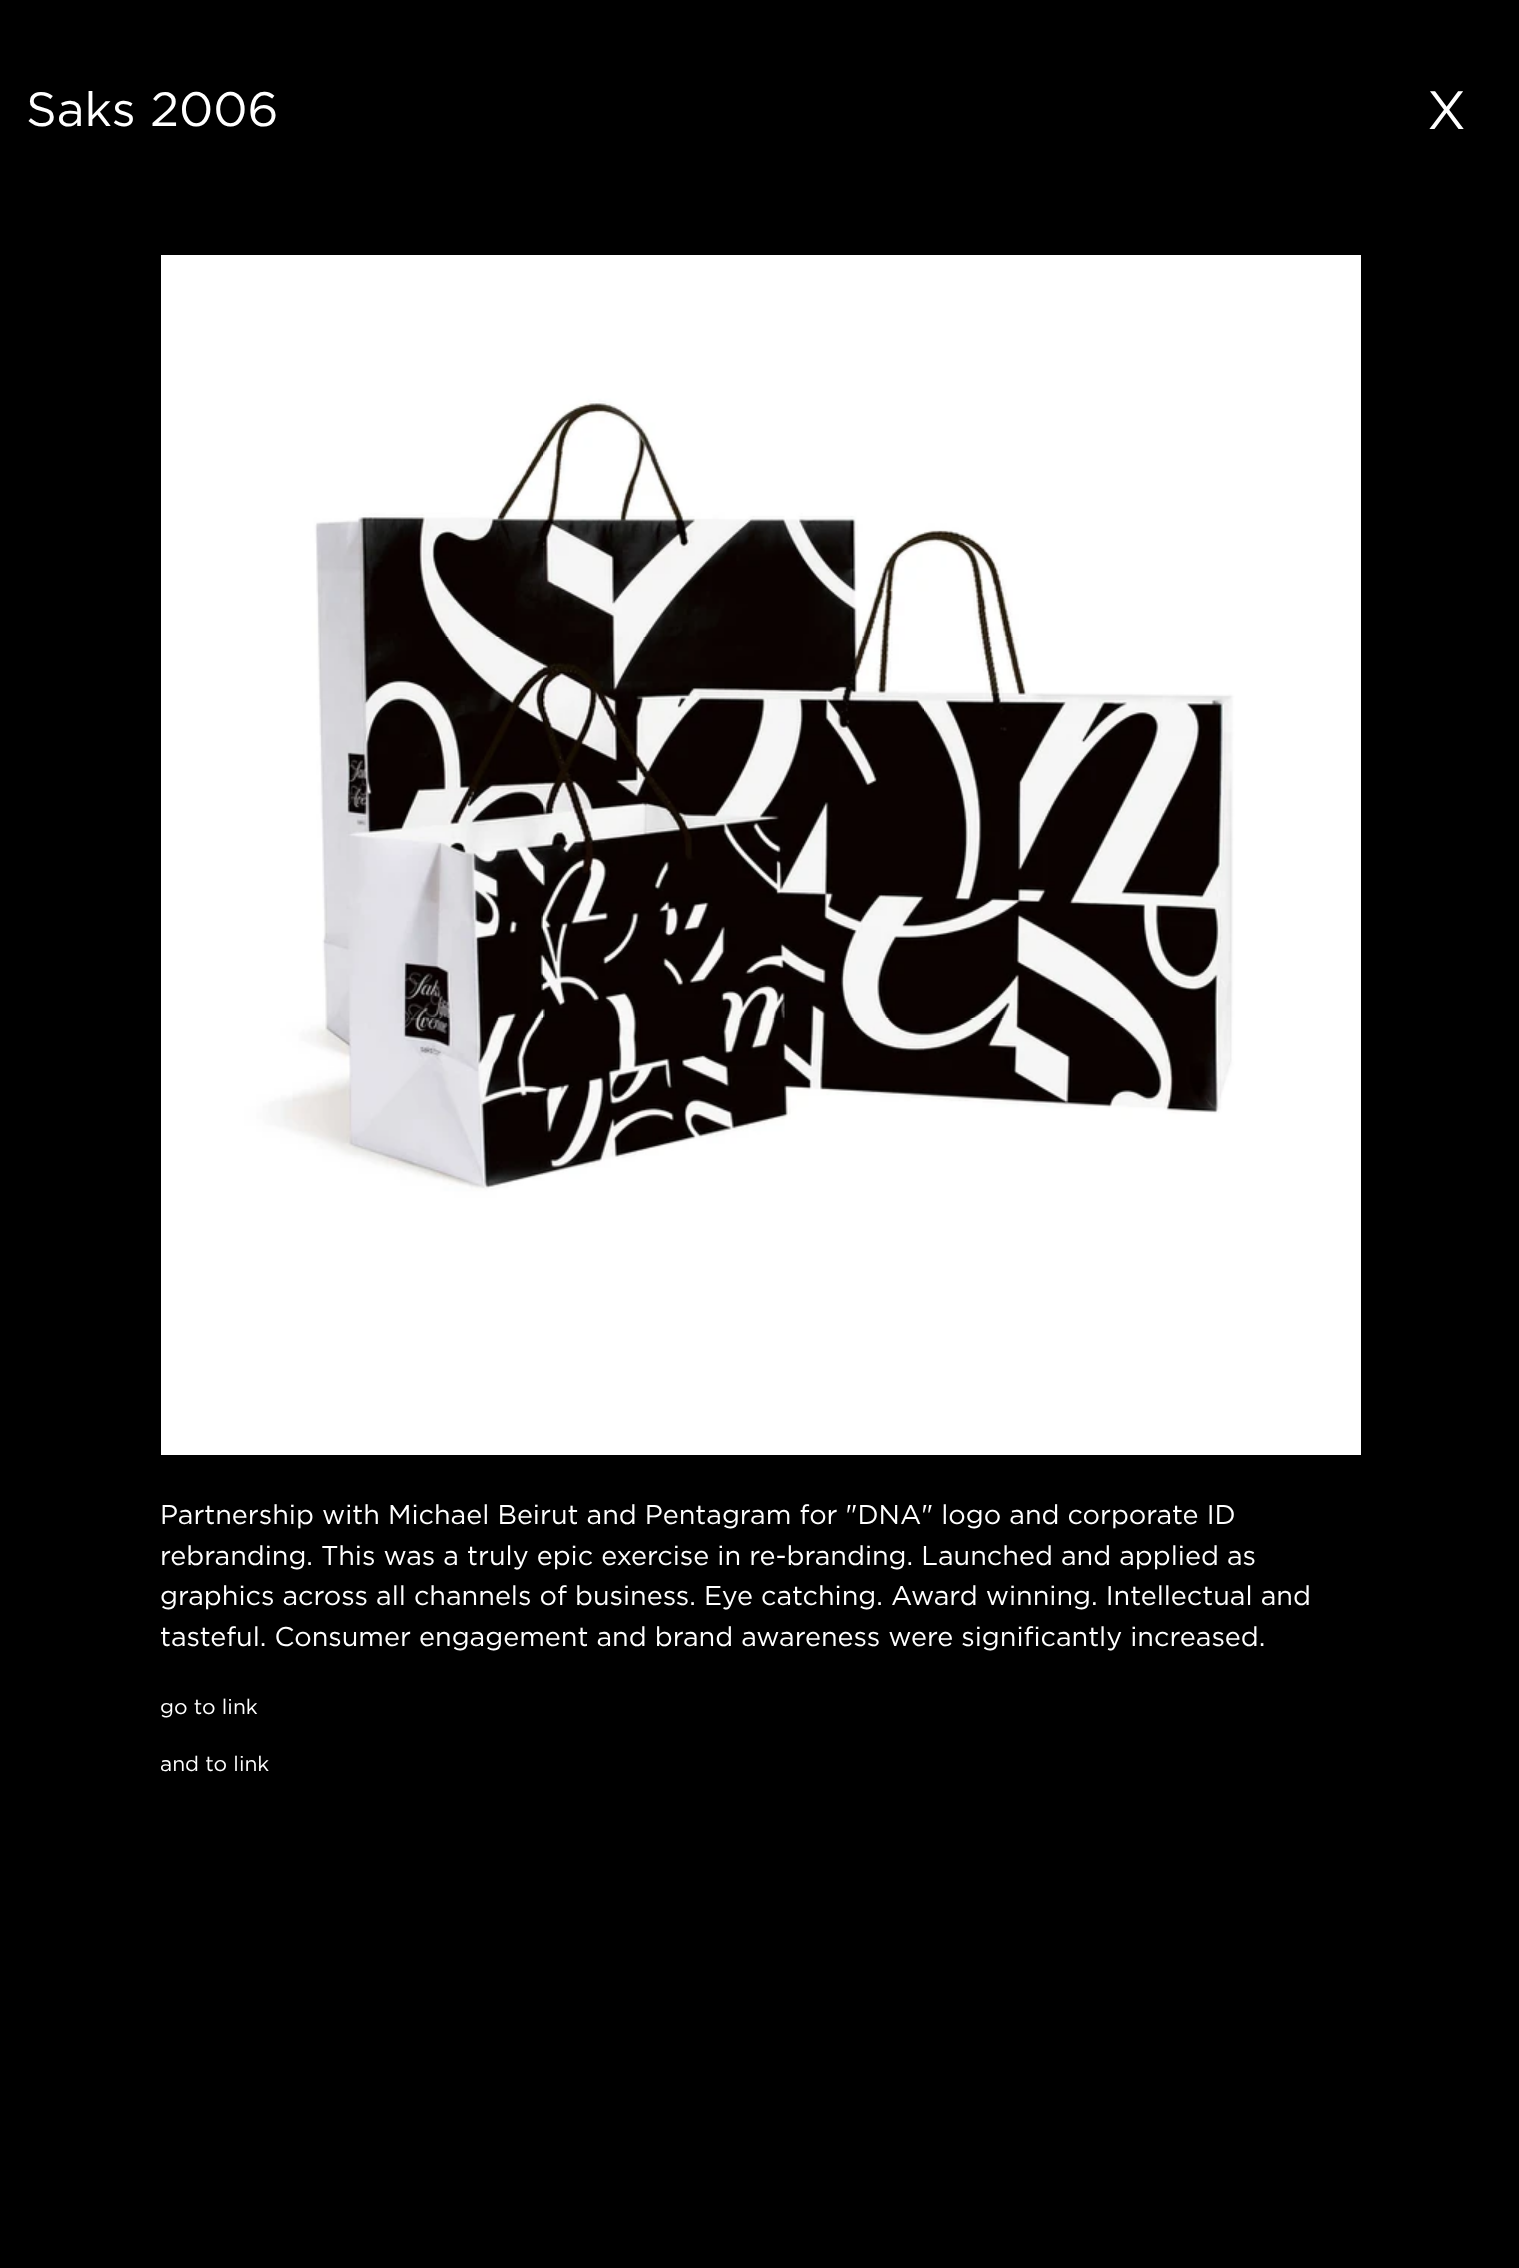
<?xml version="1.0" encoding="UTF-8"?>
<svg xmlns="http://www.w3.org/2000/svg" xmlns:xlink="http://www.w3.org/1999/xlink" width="1519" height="2268">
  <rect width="100%" height="100%" fill="#000000" />
  <image x="161" y="255" width="1200" height="1200" xlink:href="image1.png" />
  <text x="26" y="126" style="font-family: Gotham; font-size: 48px; fill: #ffffff">Saks 2006</text>
  <text x="1427" y="129" style="font-family: Gotham; font-size: 54px; fill: #ffffff">X</text>
  <text x="160" y="1524" style="font-family: Gotham; font-size: 27px; fill: #ffffff">Partnership with Michael Beirut and Pentagram for "DNA" logo and corporate ID</text>
  <text x="160" y="1565" style="font-family: Gotham; font-size: 27px; fill: #ffffff">rebranding. This was a truly epic exercise in re-branding. Launched and applied as</text>
  <text x="160" y="1605" style="font-family: Gotham; font-size: 27px; fill: #ffffff">graphics across all channels of business. Eye catching. Award winning. Intellectual and</text>
  <text x="160" y="1646" style="font-family: Gotham; font-size: 27px; fill: #ffffff">tasteful. Consumer engagement and brand awareness were significantly increased.</text>
  <text x="160" y="1714" style="font-family: Gotham; font-size: 21px; fill: #ffffff">go to link</text>
  <text x="160" y="1771" style="font-family: Gotham; font-size: 21px; fill: #ffffff">and to link</text>
</svg>
